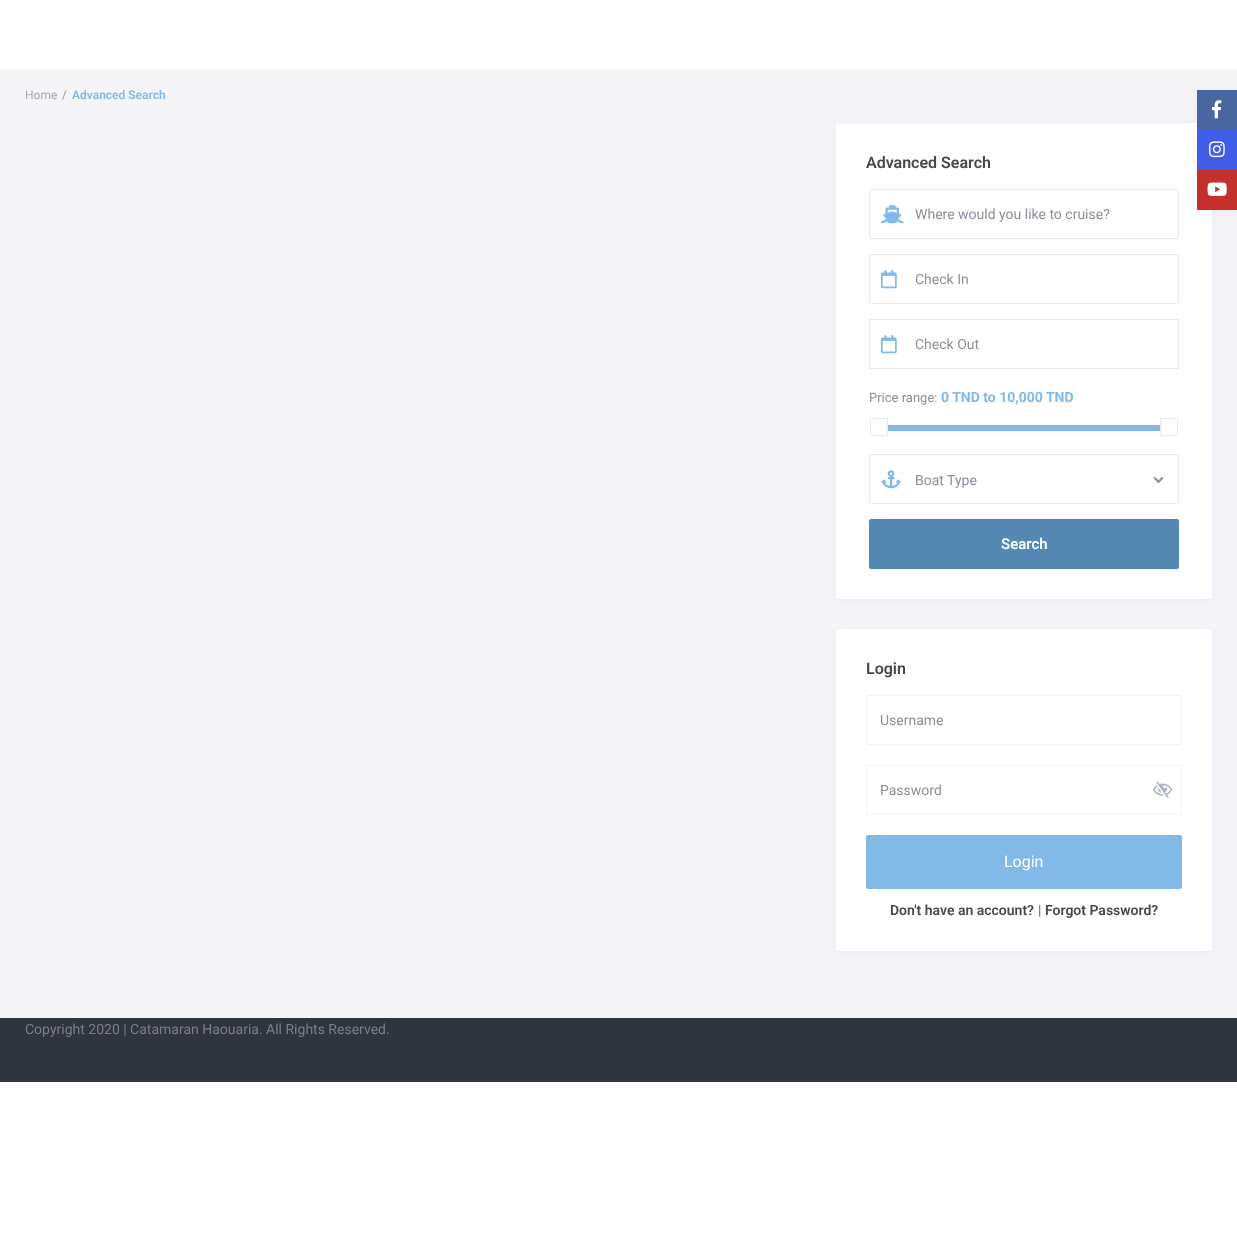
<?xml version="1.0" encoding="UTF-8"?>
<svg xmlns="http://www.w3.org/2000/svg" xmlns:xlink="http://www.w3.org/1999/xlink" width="1237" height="1237">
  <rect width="100%" height="100%" fill="#ffffff" />
  <rect y="69" width="1237" height="949" fill="#f5f5f7" />
  <rect x="836" y="125" width="376" height="476" rx="2" fill="#b57ffa" fill-opacity="0.1" filter="blur(5.5px)" />
  <rect x="836" y="123" width="376" height="476" rx="2" fill="#ffffff" />
  <rect x="869.5" y="189.5" width="309" height="49" rx="1.5" fill="none" stroke="#e7e9ef" />
  <image x="881" y="205" width="23" height="19" xlink:href="image1.png" />
  <rect x="869.5" y="254.5" width="309" height="49" rx="1.5" fill="none" stroke="#e7e9ef" />
  <image x="881" y="270" width="16" height="19" xlink:href="image2.png" />
  <rect x="869.5" y="319.5" width="309" height="49" rx="1.5" fill="none" stroke="#e7e9ef" />
  <image x="881" y="335" width="16" height="19" xlink:href="image2.png" />
  <rect x="870.5" y="418.5" width="17" height="17" rx="0.5" fill="none" stroke="#e7e9ef" />
  <rect x="888" y="425" width="272" height="6" fill="#83b9e6" />
  <rect x="1160.5" y="418.5" width="17" height="17" rx="0.5" fill="none" stroke="#e7e9ef" />
  <rect x="869.5" y="454.5" width="309" height="49" rx="1.5" fill="none" stroke="#e7e9ef" />
  <image x="881" y="470" width="21" height="19" xlink:href="image3.png" />
  <image x="1153" y="477" width="11" height="7" xlink:href="image4.png" />
  <rect x="869" y="519" width="310" height="50" rx="2" fill="#5488b2" />
  <rect x="836" y="631" width="376" height="322" rx="2" fill="#b57ffa" fill-opacity="0.1" filter="blur(5.5px)" />
  <rect x="836" y="629" width="376" height="322" rx="2" fill="#ffffff" />
  <rect x="866.5" y="695.5" width="315" height="49" rx="1.5" fill="none" stroke="#f1f3f7" />
  <rect x="866.5" y="765.5" width="315" height="49" rx="1.5" fill="none" stroke="#f1f3f7" />
  <image x="1153" y="781" width="20" height="17" xlink:href="image5.png" />
  <rect x="866" y="835" width="316" height="54" rx="2" fill="#83b9e6" />
  <rect y="1018" width="1237" height="64" fill="#2f343e" />
  <rect x="1197" y="92" width="40" height="120" fill="#b57ffa" fill-opacity="0.1" filter="blur(5.5px)" />
  <rect x="1197" y="90" width="40" height="40" fill="#4a66a0" />
  <image x="1212" y="100" width="10" height="19" xlink:href="image6.png" />
  <rect x="1197" y="130" width="40" height="40" fill="#405de6" />
  <image x="1209" y="141" width="16" height="17" xlink:href="image7.png" />
  <rect x="1197" y="170" width="40" height="40" fill="#c4302b" />
  <image x="1207" y="182" width="20" height="14" xlink:href="image8.png" />
  <text x="25" y="99" style="font-family: Roboto; font-size: 12px; fill: #a1a7b4">Home</text>
  <text x="62" y="99" style="font-family: Roboto; font-size: 12px; font-weight: 600; fill: #a1a7b4">/</text>
  <text x="72" y="99" style="font-family: Roboto; font-size: 12px; font-weight: 600; fill: #83b9e6">Advanced Search</text>
  <text x="866" y="168" style="font-family: Roboto; font-size: 16px; font-weight: 600; fill: #484848">Advanced Search</text>
  <text x="915" y="219" style="font-family: Roboto; font-size: 14px; fill: #8a8f9a">Where would you like to cruise?</text>
  <text x="915" y="284" style="font-family: Roboto; font-size: 14px; fill: #8a8f9a">Check In</text>
  <text x="915" y="349" style="font-family: Roboto; font-size: 14px; fill: #8a8f9a">Check Out</text>
  <text x="869" y="402" style="font-family: Roboto; font-size: 13px; fill: #8a8f9a">Price range:</text>
  <text x="941" y="402" style="font-family: Roboto; font-size: 14px; font-weight: bold; fill: #83b9e6">0 TND to 10,000 TND</text>
  <text x="915" y="485" style="font-family: Roboto; font-size: 14px; fill: #8a8f9a">Boat Type</text>
  <text x="1001" y="549" style="font-family: Roboto; font-size: 15px; font-weight: 600; fill: #ffffff">Search</text>
  <text x="866" y="674" style="font-family: Roboto; font-size: 16px; font-weight: 600; fill: #484848">Login</text>
  <text x="880" y="725" style="font-family: Roboto; font-size: 14px; fill: #8a8f9a">Username</text>
  <text x="880" y="795" style="font-family: Roboto; font-size: 14px; fill: #8a8f9a">Password</text>
  <text x="1004" y="867" style="font-family: Roboto; font-size: 16px; fill: #ffffff">Login</text>
  <text x="890" y="915" style="font-family: Roboto; font-size: 14px; font-weight: 600; fill: #484848">Don't have an account?</text>
  <text x="1038" y="915" style="font-family: Roboto; font-size: 14px; fill: #5d6475">|</text>
  <text x="1045" y="915" style="font-family: Roboto; font-size: 14px; font-weight: 600; fill: #484848">Forgot Password?</text>
  <text x="25" y="1034" style="font-family: Roboto; font-size: 14px; fill: #7a7e86">Copyright 2020 | Catamaran Haouaria. All Rights Reserved.</text>
</svg>
